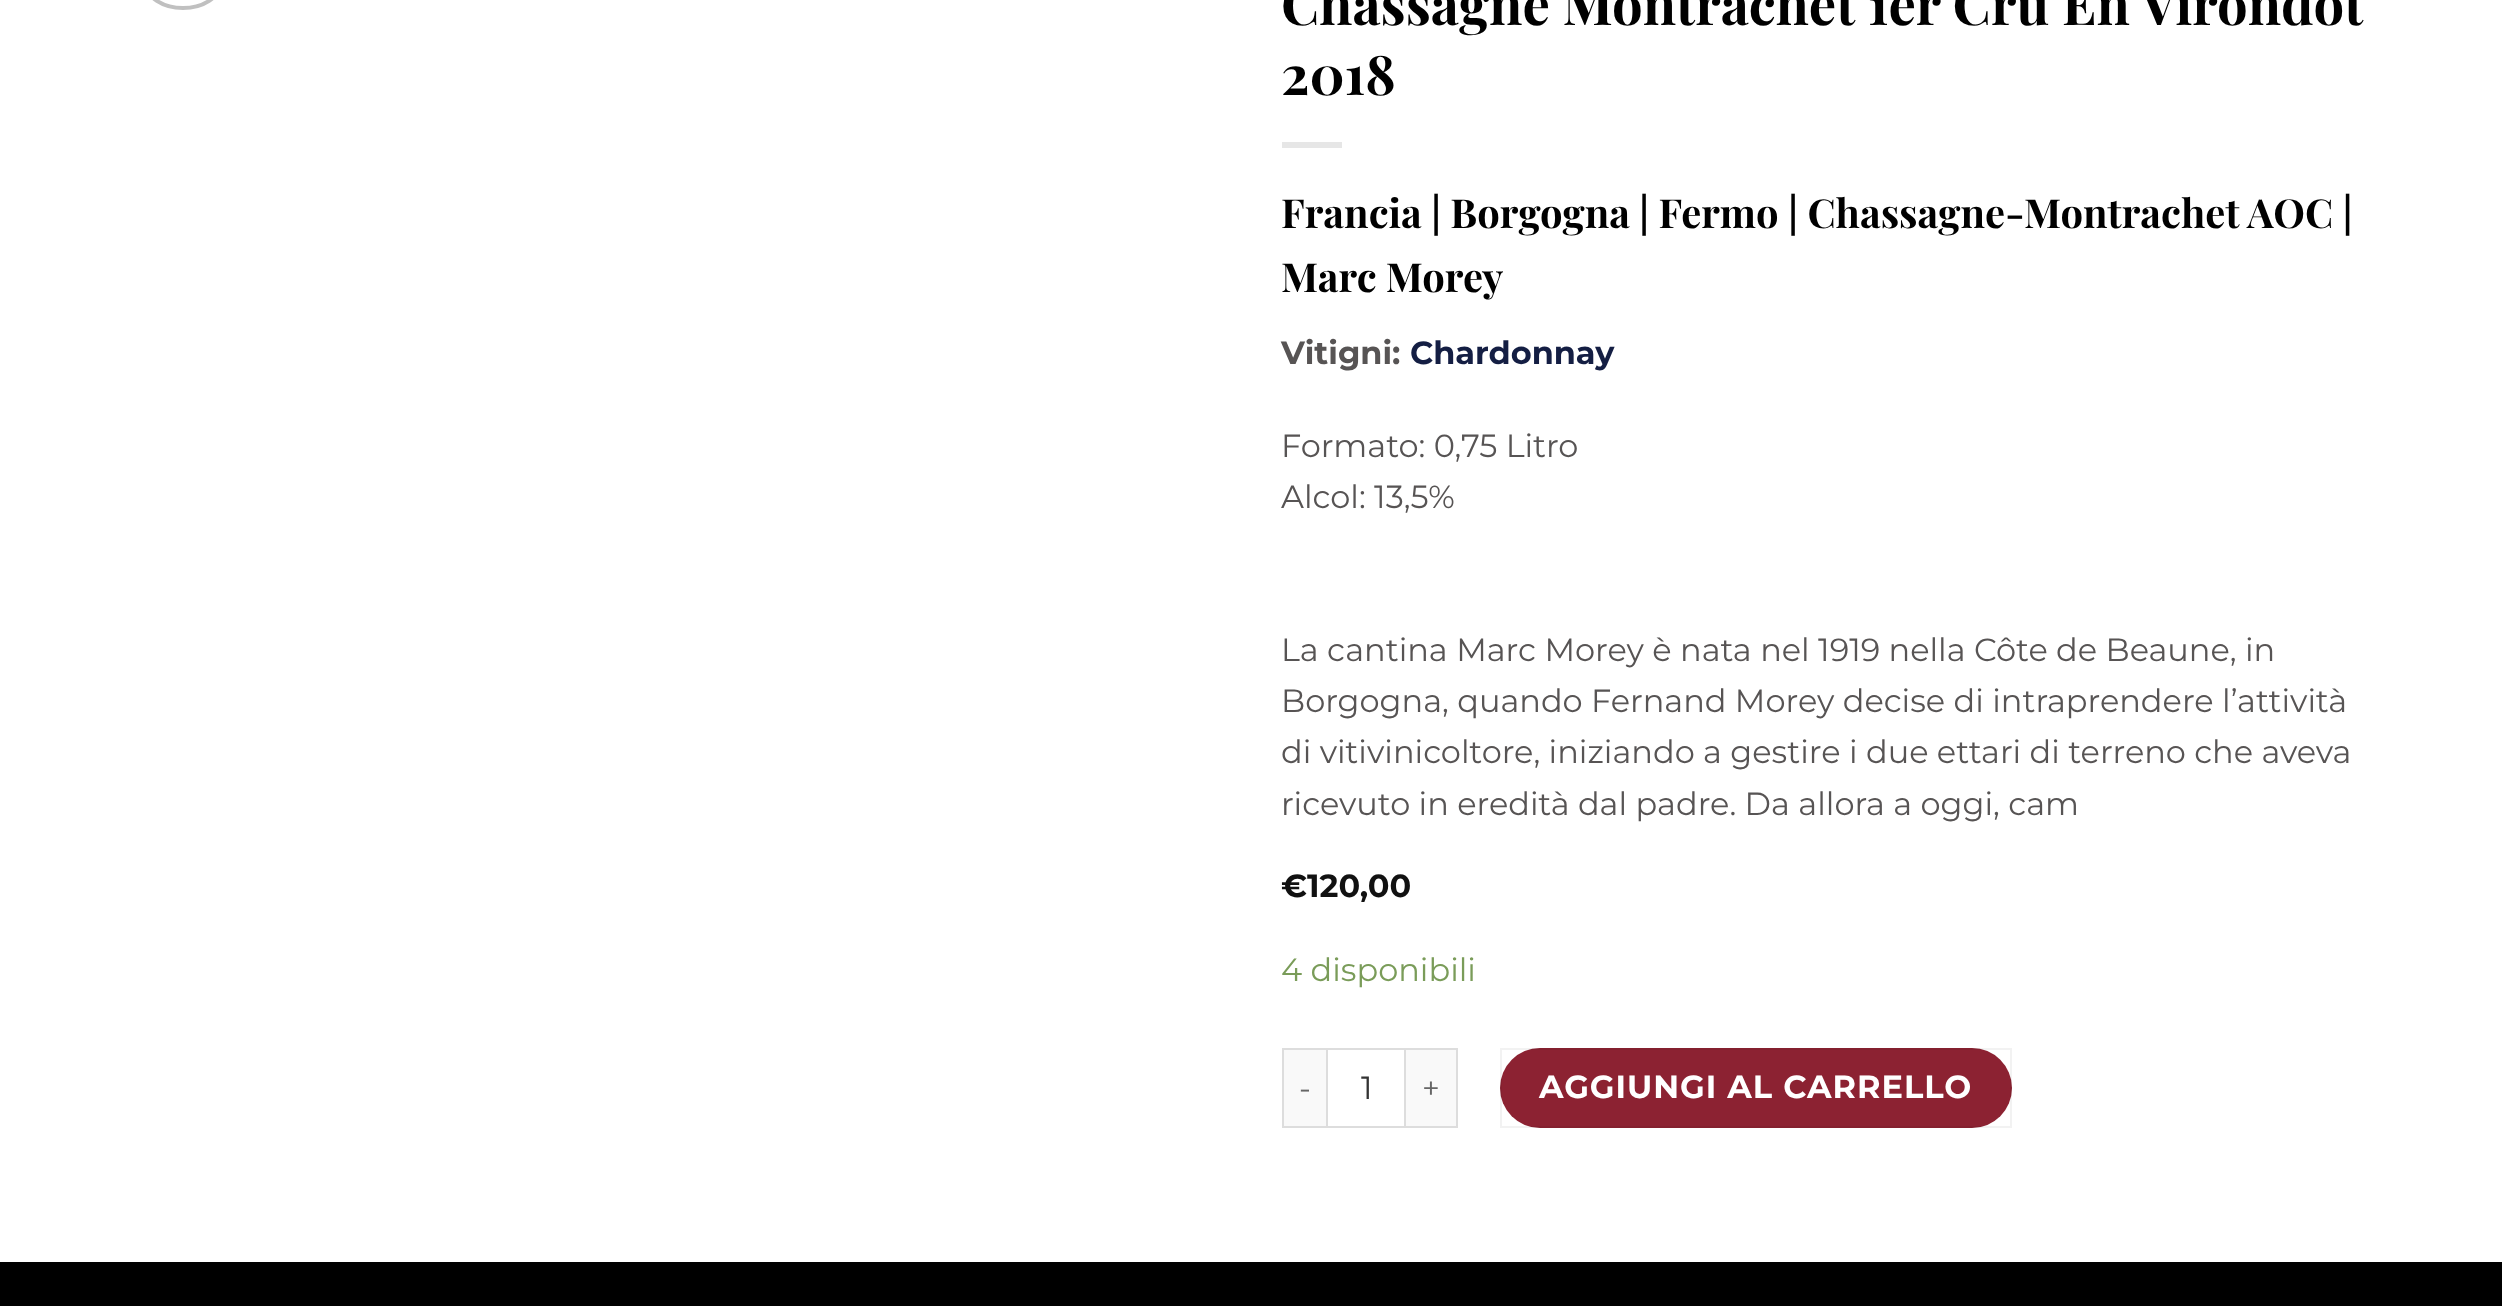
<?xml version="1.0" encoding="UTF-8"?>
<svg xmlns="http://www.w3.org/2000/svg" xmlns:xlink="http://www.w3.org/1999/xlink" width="2502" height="1306">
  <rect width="100%" height="100%" fill="#ffffff" />
  <rect x="146" y="-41" width="74" height="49" rx="37" fill="none" stroke="#c0c0c0" stroke-width="4" />
  <rect x="1282" y="142" width="60" height="6" fill="#e6e6e6" />
  <rect x="1284" y="1050" width="42" height="76" fill="#f9f9f9" />
  <rect x="1282" y="1048" width="44" height="2" fill="#dddddd" />
  <rect x="1282" y="1126" width="44" height="2" fill="#dddddd" />
  <rect x="1282" y="1048" width="2" height="80" fill="#dddddd" />
  <rect x="1327" y="1049" width="78" height="78" fill="none" stroke="#dddddd" stroke-width="2" />
  <rect x="1406" y="1050" width="50" height="76" fill="#f9f9f9" />
  <rect x="1406" y="1048" width="52" height="2" fill="#dddddd" />
  <rect x="1456" y="1048" width="2" height="80" fill="#dddddd" />
  <rect x="1406" y="1126" width="52" height="2" fill="#dddddd" />
  <rect x="1500" y="1048" width="512" height="80" rx="40" fill="#8c2232" />
  <rect x="1501" y="1049" width="510" height="78" fill="none" stroke="#000000" stroke-opacity="0.05" stroke-width="2" />
  <rect y="1262" width="2502" height="44" fill="#000000" />
  <text x="1281" y="25" style="font-family: Playfair Display; font-size: 54.4px; font-weight: bold; fill: #000000">Chassagne Montrachet 1er Cru En Virondot</text>
  <text x="1281" y="95" style="font-family: Playfair Display; font-size: 54.4px; font-weight: bold; fill: #000000">2018</text>
  <text x="1281" y="228" style="font-family: Playfair Display; font-size: 40px; font-weight: bold; fill: #000000">Francia | Borgogna | Fermo | Chassagne-Montrachet AOC |</text>
  <text x="1281" y="292" style="font-family: Playfair Display; font-size: 40px; font-weight: bold; fill: #000000">Marc Morey</text>
  <text x="1281" y="364" style="font-family: Montserrat; font-size: 32px; font-weight: bold; fill: #575454">Vitigni:</text>
  <text x="1410" y="364" style="font-family: Montserrat; font-size: 32px; font-weight: bold; fill: #141e43">Chardonnay</text>
  <text x="1281" y="457" style="font-family: Montserrat; font-size: 32px; fill: #575454">Formato: 0,75 Litro</text>
  <text x="1281" y="508" style="font-family: Montserrat; font-size: 32px; fill: #575454">Alcol: 13,5%</text>
  <text x="1281" y="661" style="font-family: Montserrat; font-size: 32px; fill: #575454">La cantina Marc Morey è nata nel 1919 nella Côte de Beaune, in</text>
  <text x="1281" y="712" style="font-family: Montserrat; font-size: 32px; fill: #575454">Borgogna, quando Fernand Morey decise di intraprendere l’attività</text>
  <text x="1281" y="763" style="font-family: Montserrat; font-size: 32px; fill: #575454">di vitivinicoltore, iniziando a gestire i due ettari di terreno che aveva</text>
  <text x="1281" y="815" style="font-family: Montserrat; font-size: 32px; fill: #575454">ricevuto in eredità dal padre. Da allora a oggi, cam</text>
  <text x="1281" y="897" style="font-family: Montserrat; font-size: 32px; font-weight: bold; fill: #111111">€</text>
  <text x="1307" y="897" style="font-family: Montserrat; font-size: 32px; font-weight: bold; fill: #111111">120,00</text>
  <text x="1281" y="981" style="font-family: Montserrat; font-size: 32px; fill: #7a9c59">4 disponibili</text>
  <text x="1299" y="1099" style="font-family: Montserrat; font-size: 31px; letter-spacing: 1px; fill: #666666">-</text>
  <text x="1361" y="1099" style="font-family: Montserrat; font-size: 32px; fill: #333333">1</text>
  <text x="1422" y="1099" style="font-family: Montserrat; font-size: 31px; letter-spacing: 1px; fill: #666666">+</text>
  <text x="1539" y="1098" style="font-family: Montserrat; font-size: 32px; font-weight: bold; letter-spacing: 1px; fill: #ffffff">AGGIUNGI AL CARRELLO</text>
</svg>
